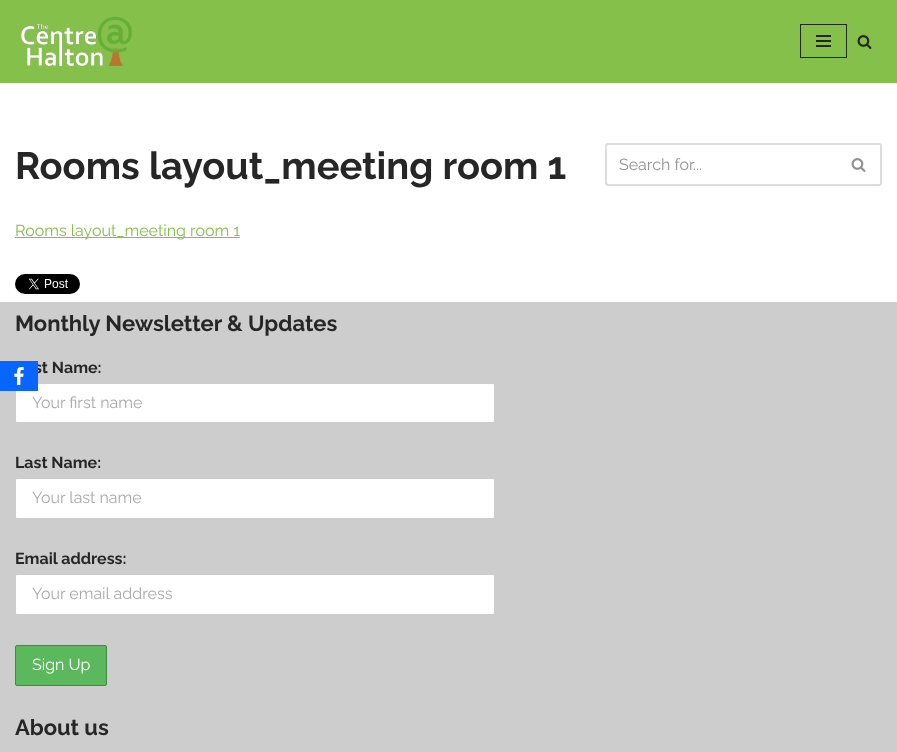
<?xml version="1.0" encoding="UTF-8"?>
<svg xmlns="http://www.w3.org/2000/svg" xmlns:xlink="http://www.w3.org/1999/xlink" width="897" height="752">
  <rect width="100%" height="100%" fill="#ffffff" />
  <rect width="897" height="83" fill="#85c04b" />
  <image x="21" y="16" width="111" height="51" xlink:href="image1.png" />
  <rect x="800.5" y="24.5" width="46" height="33" fill="none" stroke="#272626" />
  <rect x="816" y="35" width="15" height="2" fill="#272626" />
  <rect x="816" y="40" width="15" height="2" fill="#272626" />
  <rect x="816" y="45" width="15" height="2" fill="#272626" />
  <image x="857" y="35" width="15" height="14" xlink:href="image2.png" />
  <rect x="15" y="237" width="225" height="1" fill="#85c04d" />
  <image x="15" y="274" width="65" height="20" xlink:href="image3.png" />
  <path d="M 608 143 h 229 v 43 h -229 c -2 0 -3 -1 -3 -3 v -37 c 0 -2 1 -3 3 -3 z m 0 2 h 229 v 39 h -229 l -1 -1 v -31 c 0 -2 -1 -7 1 -7 z" fill="#dddddd" fill-rule="evenodd" />
  <path d="M 837 143 h 42 c 2 0 3 1 3 3 v 37 c 0 2 -1 3 -3 3 h -42 z m 0 2 h 42 c 1 0 1 0 1 1 v 37 c 0 1 0 1 -1 1 h -42 z" fill="#dddddd" fill-rule="evenodd" />
  <image x="851" y="158" width="15" height="14" xlink:href="image4.png" />
  <rect y="302" width="897" height="450" fill="#cdcdcd" />
  <rect x="15.5" y="383.5" width="479" height="39" rx="1.5" fill="#ffffff" stroke="#cccccc" />
  <rect x="15.5" y="478.5" width="479" height="40" rx="1.5" fill="#ffffff" stroke="#cccccc" />
  <rect x="15.5" y="574.5" width="479" height="40" rx="1.5" fill="#ffffff" stroke="#cccccc" />
  <rect x="15.5" y="645.5" width="91" height="40" rx="1.5" fill="#5cb85c" stroke="#3d8b3d" />
  <text x="15" y="179" style="font-family: Raleway; font-size: 38px; font-weight: bold; fill: #272626">Rooms layout_meeting room 1</text>
  <text x="15" y="236" style="font-family: Raleway; font-size: 16px; fill: #85c04d">Rooms layout_meeting room 1</text>
  <text x="619" y="170" style="font-family: Raleway; font-size: 16px; fill: #939393">Search for...</text>
  <text x="15" y="331" style="font-family: Raleway; font-size: 22px; font-weight: bold; fill: #272626">Monthly Newsletter &amp; Updates</text>
  <text x="34" y="373" style="font-family: Raleway; font-size: 16px; font-weight: bold; fill: #272626">st Name:</text>
  <text x="32" y="408" style="font-family: Raleway; font-size: 16px; fill: #aaaaaa">Your first name</text>
  <text x="15" y="468" style="font-family: Raleway; font-size: 16px; font-weight: bold; fill: #272626">Last Name:</text>
  <text x="32" y="503" style="font-family: Raleway; font-size: 16px; fill: #aaaaaa">Your last name</text>
  <text x="15" y="564" style="font-family: Raleway; font-size: 16px; font-weight: bold; fill: #272626">Email address:</text>
  <text x="32" y="599" style="font-family: Raleway; font-size: 16px; fill: #aaaaaa">Your email address</text>
  <text x="32" y="670" style="font-family: Raleway; font-size: 16px; fill: #ffffff">Sign Up</text>
  <text x="15" y="735" style="font-family: Raleway; font-size: 22px; font-weight: bold; fill: #272626">About us</text>
  <rect y="361" width="38" height="30" fill="#0866ff" />
  <image x="14" y="367" width="10" height="18" xlink:href="image5.png" />
</svg>
